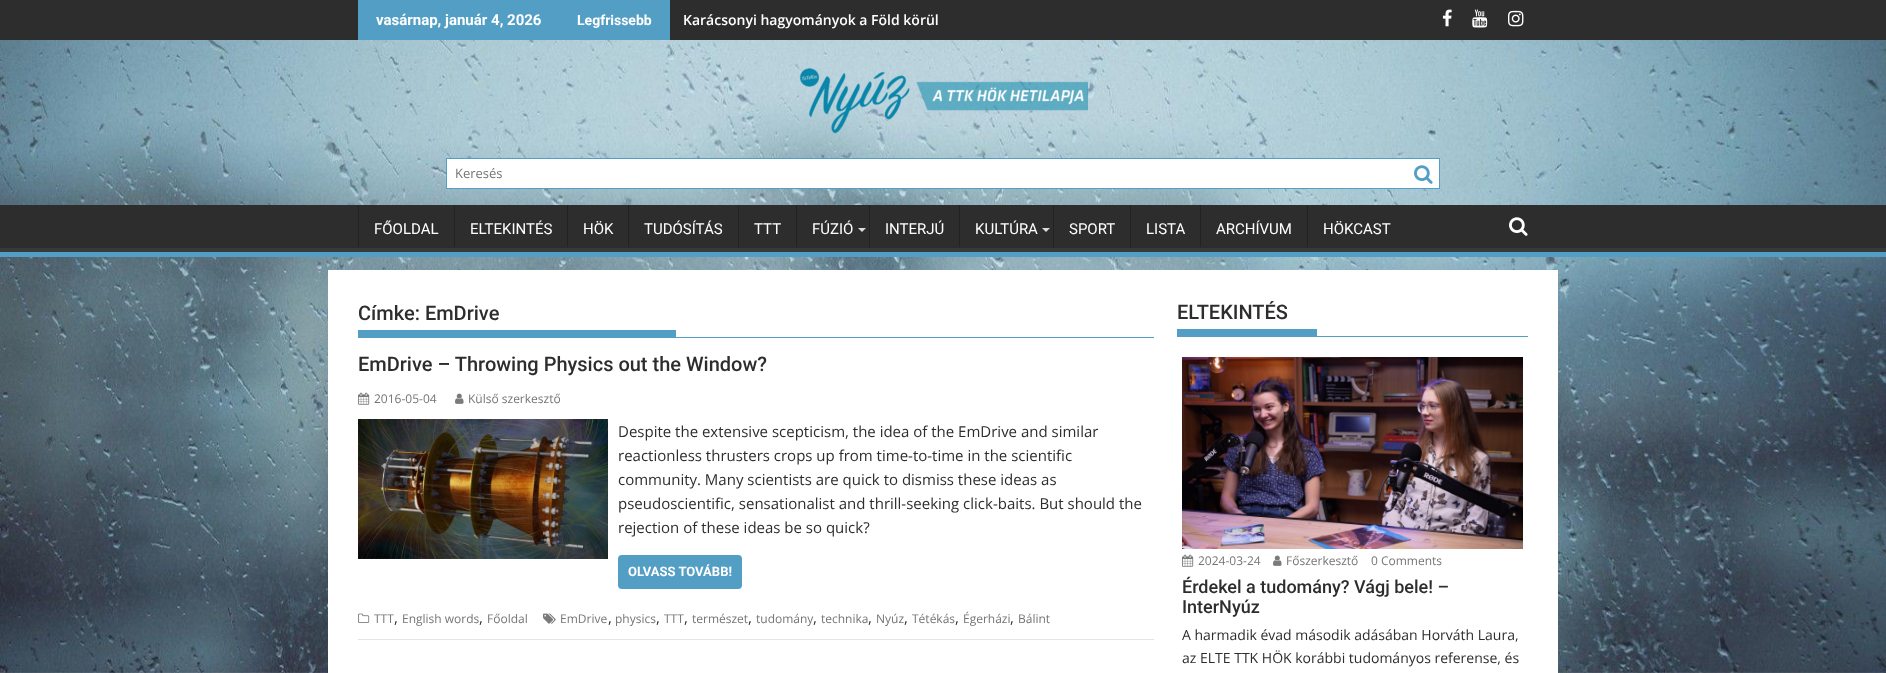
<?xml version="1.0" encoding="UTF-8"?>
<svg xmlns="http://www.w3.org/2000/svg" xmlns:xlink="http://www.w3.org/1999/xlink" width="1886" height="673">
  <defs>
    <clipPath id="clip1"><rect y="205" width="1886" height="47" /></clipPath>
  </defs>
  <rect width="100%" height="100%" fill="#ffffff" />
  <image x="0" y="40" width="1886" height="633" xlink:href="image1.png" />
  <rect width="1886" height="40" fill="#2d2d2d" />
  <rect x="358" width="312" height="40" fill="#529ec4" />
  <image x="1442" y="9" width="10" height="18" xlink:href="image2.png" />
  <image x="1472" y="9" width="16" height="19" xlink:href="image3.png" />
  <image x="1508" y="10" width="16" height="17" xlink:href="image4.png" />
  <image x="799" y="68" width="289" height="66" xlink:href="image5.png" />
  <rect x="446.5" y="158.5" width="993" height="30" fill="#ffffff" stroke="#529ec4" />
  <image x="1414" y="165" width="19" height="19" xlink:href="image6.png" />
  <rect y="205" width="1886" height="43" fill="#2d2d2d" />
  <g clip-path="url(#clip1)">
    <path d="M -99 106 h 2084 v 245 h -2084 z m 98 93 h 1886 c 1 0 1 0 1 1 v 47 c 0 1 0 1 -1 1 h -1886 c -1 0 -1 0 -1 -1 v -47 c 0 -1 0 -1 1 -1 z" fill="#393939" fill-rule="evenodd" />
  </g>
  <rect y="252" width="1886" height="5" fill="#529ec4" />
  <rect x="358" y="205" width="1" height="42" fill="#222222" />
  <rect x="454" y="205" width="1" height="42" fill="#222222" />
  <rect x="567" y="205" width="1" height="42" fill="#222222" />
  <rect x="628" y="205" width="1" height="42" fill="#222222" />
  <rect x="738" y="205" width="1" height="42" fill="#222222" />
  <rect x="796" y="205" width="1" height="42" fill="#222222" />
  <path d="M 858 228 h 8 l -4 4 z" fill="#dddddd" />
  <rect x="869" y="205" width="1" height="42" fill="#222222" />
  <rect x="959" y="205" width="1" height="42" fill="#222222" />
  <path d="M 1042 228 h 8 l -4 4 z" fill="#dddddd" />
  <rect x="1053" y="205" width="1" height="42" fill="#222222" />
  <rect x="1130" y="205" width="1" height="42" fill="#222222" />
  <rect x="1200" y="205" width="1" height="42" fill="#222222" />
  <rect x="1307" y="205" width="1" height="42" fill="#222222" />
  <image x="1509" y="217" width="19" height="19" xlink:href="image7.png" />
  <rect x="328" y="270" width="1230" height="403" fill="#ffffff" />
  <rect x="358" y="337" width="796" height="1" fill="#529ec4" />
  <rect x="358" y="330" width="318" height="7" fill="#529ec4" />
  <rect x="358" y="639" width="796" height="1" fill="#e5e5e5" />
  <image x="358" y="392" width="12" height="13" xlink:href="image8.png" />
  <image x="455" y="393" width="9" height="11" xlink:href="image9.png" />
  <image x="358" y="419" width="250" height="140" xlink:href="image10.png" />
  <rect x="618" y="555" width="124" height="34" rx="4" fill="#529ec4" />
  <image x="358" y="613" width="12" height="10" xlink:href="image11.png" />
  <image x="543" y="613" width="13" height="11" xlink:href="image12.png" />
  <rect x="1177" y="336" width="351" height="1" fill="#529ec4" />
  <rect x="1177" y="329" width="140" height="7" fill="#529ec4" />
  <image x="1182" y="357" width="341" height="192" xlink:href="image13.png" />
  <image x="1182" y="554" width="12" height="13" xlink:href="image8.png" />
  <image x="1273" y="555" width="9" height="11" xlink:href="image9.png" />
  <text x="376" y="25" style="font-family: Roboto; font-size: 15px; font-weight: bold; fill: #ffffff">vasárnap, január 4, 2026</text>
  <text x="577" y="25" style="font-family: Roboto; font-size: 14px; font-weight: bold; fill: #ffffff">Legfrissebb</text>
  <text x="683" y="25" style="font-family: Open Sans; font-size: 14px; font-weight: 600; fill: #ffffff">Karácsonyi hagyományok a Föld körül</text>
  <text x="455" y="178" style="font-family: Open Sans; font-size: 13px; fill: #757575">Keresés</text>
  <text x="374" y="234" style="font-family: Roboto; font-size: 15px; fill: #ffffff">FŐOLDAL</text>
  <text x="470" y="234" style="font-family: Roboto; font-size: 15px; fill: #ffffff">ELTEKINTÉS</text>
  <text x="583" y="234" style="font-family: Roboto; font-size: 15px; fill: #ffffff">HÖK</text>
  <text x="644" y="234" style="font-family: Roboto; font-size: 15px; fill: #ffffff">TUDÓSÍTÁS</text>
  <text x="754" y="234" style="font-family: Roboto; font-size: 15px; fill: #ffffff">TTT</text>
  <text x="812" y="234" style="font-family: Roboto; font-size: 15px; fill: #ffffff">FÚZIÓ</text>
  <text x="885" y="234" style="font-family: Roboto; font-size: 15px; fill: #ffffff">INTERJÚ</text>
  <text x="975" y="234" style="font-family: Roboto; font-size: 15px; fill: #ffffff">KULTÚRA</text>
  <text x="1069" y="234" style="font-family: Roboto; font-size: 15px; fill: #ffffff">SPORT</text>
  <text x="1146" y="234" style="font-family: Roboto; font-size: 15px; fill: #ffffff">LISTA</text>
  <text x="1216" y="234" style="font-family: Roboto; font-size: 15px; fill: #ffffff">ARCHÍVUM</text>
  <text x="1323" y="234" style="font-family: Roboto; font-size: 15px; fill: #ffffff">HÖKCAST</text>
  <text x="358" y="320" style="font-family: Roboto; font-size: 20px; font-weight: 500; fill: #2d2d2d">Címke: EmDrive</text>
  <text x="358" y="371" style="font-family: Roboto; font-size: 20px; font-weight: 500; fill: #2d2d2d">EmDrive – Throwing Physics out the Window?</text>
  <text x="374" y="403" style="font-family: Open Sans; font-size: 12px; fill: #757575">2016-05-04</text>
  <text x="468" y="403" style="font-family: Open Sans; font-size: 12px; fill: #757575">Külső szerkesztő</text>
  <text x="618" y="437" style="font-family: Open Sans; font-size: 15px; fill: #2d2d2d">Despite the extensive scepticism, the idea of the EmDrive and similar</text>
  <text x="618" y="461" style="font-family: Open Sans; font-size: 15px; fill: #2d2d2d">reactionless thrusters crops up from time-to-time in the scientific</text>
  <text x="618" y="485" style="font-family: Open Sans; font-size: 15px; fill: #2d2d2d">community. Many scientists are quick to dismiss these ideas as</text>
  <text x="618" y="509" style="font-family: Open Sans; font-size: 15px; fill: #2d2d2d">pseudoscientific, sensationalist and thrill-seeking click-baits. But should the</text>
  <text x="618" y="533" style="font-family: Open Sans; font-size: 15px; fill: #2d2d2d">rejection of these ideas be so quick?</text>
  <text x="628" y="576" style="font-family: Roboto; font-size: 13px; font-weight: bold; fill: #ffffff">OLVASS TOVÁBB!</text>
  <text x="374" y="623" style="font-family: Open Sans; font-size: 12px; fill: #757575">TTT</text>
  <text x="394" y="623" style="font-family: Open Sans; font-size: 15px; fill: #2d2d2d">,</text>
  <text x="402" y="623" style="font-family: Open Sans; font-size: 12px; fill: #757575">English words</text>
  <text x="479" y="623" style="font-family: Open Sans; font-size: 15px; fill: #2d2d2d">,</text>
  <text x="487" y="623" style="font-family: Open Sans; font-size: 12px; fill: #757575">Főoldal</text>
  <text x="560" y="623" style="font-family: Open Sans; font-size: 12px; fill: #757575">EmDrive</text>
  <text x="608" y="623" style="font-family: Open Sans; font-size: 15px; fill: #2d2d2d">,</text>
  <text x="615" y="623" style="font-family: Open Sans; font-size: 12px; fill: #757575">physics</text>
  <text x="656" y="623" style="font-family: Open Sans; font-size: 15px; fill: #2d2d2d">,</text>
  <text x="664" y="623" style="font-family: Open Sans; font-size: 12px; fill: #757575">TTT</text>
  <text x="684" y="623" style="font-family: Open Sans; font-size: 15px; fill: #2d2d2d">,</text>
  <text x="692" y="623" style="font-family: Open Sans; font-size: 12px; fill: #757575">természet</text>
  <text x="748" y="623" style="font-family: Open Sans; font-size: 15px; fill: #2d2d2d">,</text>
  <text x="756" y="623" style="font-family: Open Sans; font-size: 12px; fill: #757575">tudomány</text>
  <text x="813" y="623" style="font-family: Open Sans; font-size: 15px; fill: #2d2d2d">,</text>
  <text x="821" y="623" style="font-family: Open Sans; font-size: 12px; fill: #757575">technika</text>
  <text x="868" y="623" style="font-family: Open Sans; font-size: 15px; fill: #2d2d2d">,</text>
  <text x="876" y="623" style="font-family: Open Sans; font-size: 12px; fill: #757575">Nyúz</text>
  <text x="904" y="623" style="font-family: Open Sans; font-size: 15px; fill: #2d2d2d">,</text>
  <text x="912" y="623" style="font-family: Open Sans; font-size: 12px; fill: #757575">Tétékás</text>
  <text x="955" y="623" style="font-family: Open Sans; font-size: 15px; fill: #2d2d2d">,</text>
  <text x="963" y="623" style="font-family: Open Sans; font-size: 12px; fill: #757575">Égerházi</text>
  <text x="1010" y="623" style="font-family: Open Sans; font-size: 15px; fill: #2d2d2d">,</text>
  <text x="1018" y="623" style="font-family: Open Sans; font-size: 12px; fill: #757575">Bálint</text>
  <text x="1177" y="319" style="font-family: Roboto; font-size: 20px; font-weight: 500; fill: #2d2d2d">ELTEKINTÉS</text>
  <text x="1198" y="565" style="font-family: Open Sans; font-size: 12px; fill: #757575">2024-03-24</text>
  <text x="1286" y="565" style="font-family: Open Sans; font-size: 12px; fill: #757575">Főszerkesztő</text>
  <text x="1371" y="565" style="font-family: Open Sans; font-size: 12px; fill: #757575">0 Comments</text>
  <text x="1182" y="593" style="font-family: Roboto; font-size: 18px; font-weight: 500; fill: #2d2d2d">Érdekel a tudomány? Vágj bele! –</text>
  <text x="1182" y="613" style="font-family: Roboto; font-size: 18px; font-weight: 500; fill: #2d2d2d">InterNyúz</text>
  <text x="1182" y="640" style="font-family: Open Sans; font-size: 14px; fill: #2d2d2d">A harmadik évad második adásában Horváth Laura,</text>
  <text x="1182" y="663" style="font-family: Open Sans; font-size: 14px; fill: #2d2d2d">az ELTE TTK HÖK korábbi tudományos referense, és</text>
</svg>
